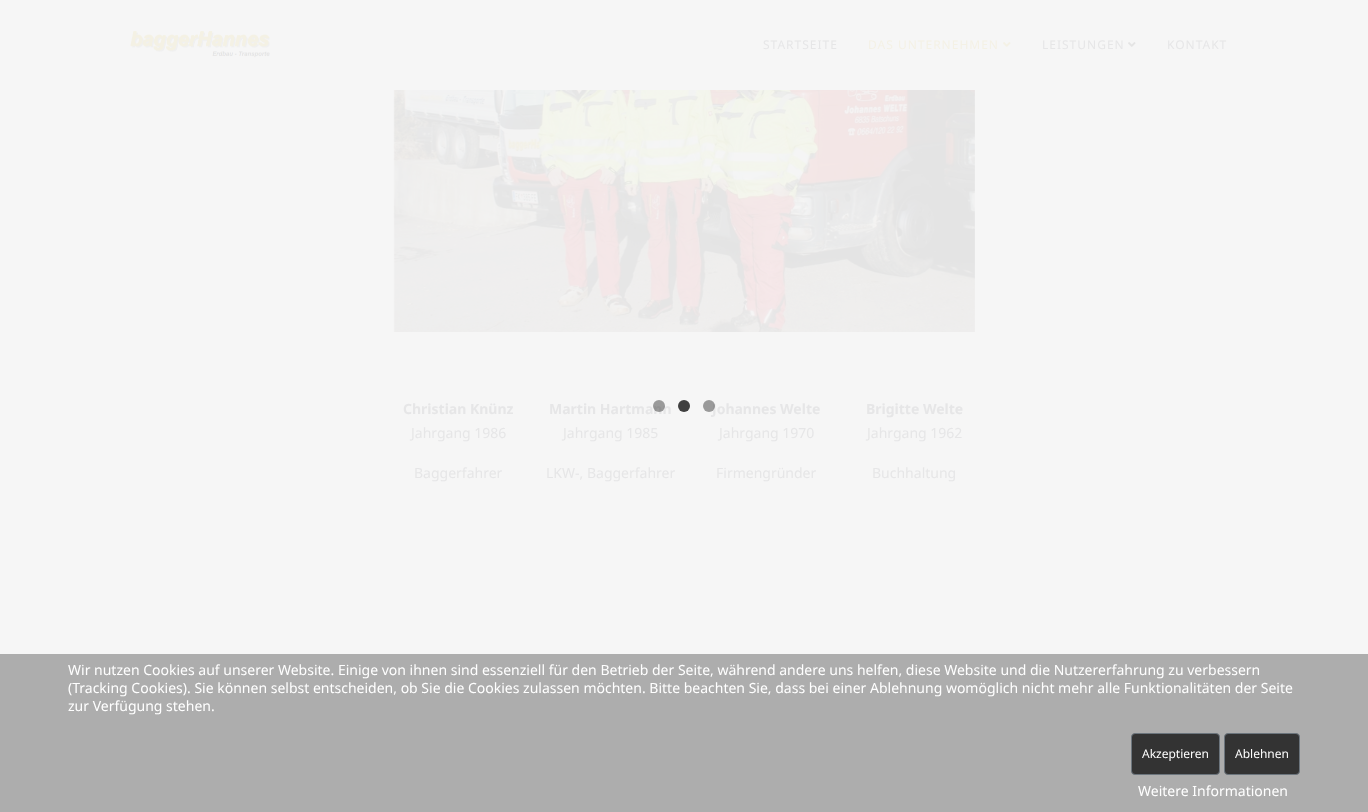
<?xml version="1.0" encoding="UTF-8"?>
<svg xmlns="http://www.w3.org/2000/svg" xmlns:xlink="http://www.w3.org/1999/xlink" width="1368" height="812">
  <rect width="100%" height="100%" fill="#f6f6f6" />
  <image x="130" y="31" width="140" height="27" xlink:href="image1.png" />
  <image x="1003" y="42" width="8" height="5" xlink:href="image2.png" />
  <image x="1128" y="42" width="8" height="5" xlink:href="image3.png" />
  <circle cx="684" cy="406" r="6" fill="#404040" />
  <image x="393" y="90" width="582" height="242" xlink:href="image4.png" />
  <rect y="654" width="1368" height="158" fill="#adadad" />
  <rect x="1131.5" y="733.5" width="88" height="41" rx="3.5" fill="#333333" stroke="#6c757d" />
  <rect x="1224.5" y="733.5" width="75" height="41" rx="3.5" fill="#333333" stroke="#6c757d" />
  <text x="763" y="49" style="font-family: Noto Sans; font-size: 12px; letter-spacing: 1px; fill: #e6e6e7">STARTSEITE</text>
  <text x="868" y="49" style="font-family: Noto Sans; font-size: 12px; letter-spacing: 1px; fill: #f4f1e5">DAS UNTERNEHMEN</text>
  <text x="1042" y="49" style="font-family: Noto Sans; font-size: 12px; letter-spacing: 1px; fill: #e6e6e7">LEISTUNGEN</text>
  <text x="1167" y="49" style="font-family: Noto Sans; font-size: 12px; letter-spacing: 1px; fill: #e6e6e7">KONTAKT</text>
  <text x="403" y="414" style="font-family: Noto Sans; font-size: 14px; font-weight: bold; fill: #e6e6e7">Christian Knünz</text>
  <text x="411" y="438" style="font-family: Noto Sans; font-size: 14px; fill: #e6e6e7">Jahrgang 1986</text>
  <text x="414" y="478" style="font-family: Noto Sans; font-size: 14px; fill: #e6e6e7">Baggerfahrer</text>
  <text x="549" y="414" style="font-family: Noto Sans; font-size: 14px; font-weight: bold; fill: #e6e6e7">Martin Hartmann</text>
  <circle cx="659" cy="406" r="6" fill="#333333" fill-opacity="0.47" />
  <text x="563" y="438" style="font-family: Noto Sans; font-size: 14px; fill: #e6e6e7">Jahrgang 1985</text>
  <text x="546" y="478" style="font-family: Noto Sans; font-size: 14px; fill: #e6e6e7">LKW-, Baggerfahrer</text>
  <text x="712" y="414" style="font-family: Noto Sans; font-size: 14px; font-weight: bold; fill: #e6e6e7">Johannes Welte</text>
  <circle cx="709" cy="406" r="6" fill="#333333" fill-opacity="0.47" />
  <text x="719" y="438" style="font-family: Noto Sans; font-size: 14px; fill: #e6e6e7">Jahrgang 1970</text>
  <text x="716" y="478" style="font-family: Noto Sans; font-size: 14px; fill: #e6e6e7">Firmengründer</text>
  <text x="866" y="414" style="font-family: Noto Sans; font-size: 14px; font-weight: bold; fill: #e6e6e7">Brigitte Welte</text>
  <text x="867" y="438" style="font-family: Noto Sans; font-size: 14px; fill: #e6e6e7">Jahrgang 1962</text>
  <text x="872" y="478" style="font-family: Noto Sans; font-size: 14px; fill: #e6e6e7">Buchhaltung</text>
  <text x="68" y="675" style="font-family: Noto Sans; font-size: 14px; fill: #ffffff">Wir nutzen Cookies auf unserer Website. Einige von ihnen sind essenziell für den Betrieb der Seite, während andere uns helfen, diese Website und die Nutzererfahrung zu verbessern</text>
  <text x="68" y="693" style="font-family: Noto Sans; font-size: 14px; fill: #ffffff">(Tracking Cookies). Sie können selbst entscheiden, ob Sie die Cookies zulassen möchten. Bitte beachten Sie, dass bei einer Ablehnung womöglich nicht mehr alle Funktionalitäten der Seite</text>
  <text x="68" y="711" style="font-family: Noto Sans; font-size: 14px; fill: #ffffff">zur Verfügung stehen.</text>
  <text x="1142" y="758" style="font-family: Noto Sans; font-size: 12px; fill: #ffffff">Akzeptieren</text>
  <text x="1235" y="758" style="font-family: Noto Sans; font-size: 12px; fill: #ffffff">Ablehnen</text>
  <text x="1138" y="796" style="font-family: Noto Sans; font-size: 14px; fill: #ffffff">Weitere Informationen</text>
</svg>
